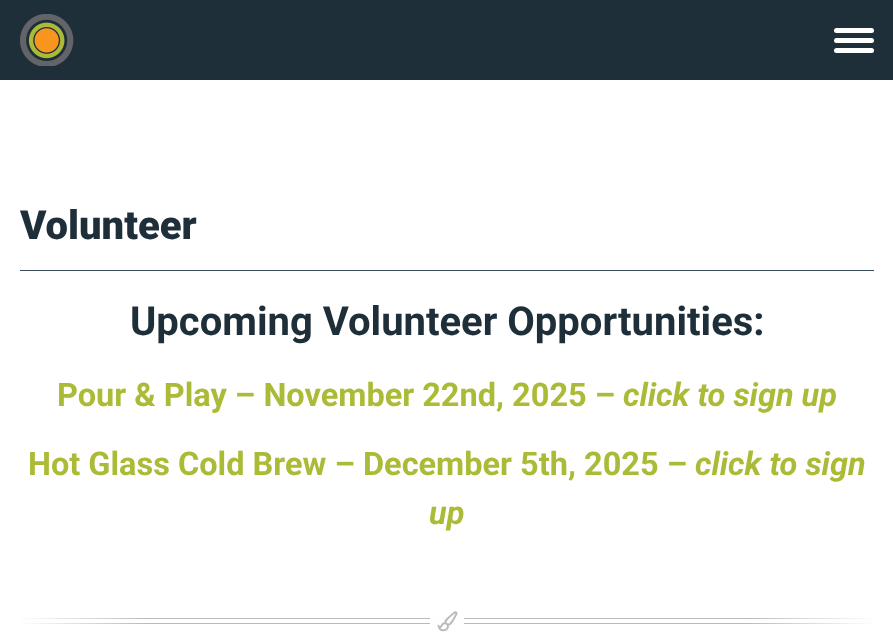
<?xml version="1.0" encoding="UTF-8"?>
<svg xmlns="http://www.w3.org/2000/svg" xmlns:xlink="http://www.w3.org/1999/xlink" width="893" height="643">
  <defs>
    <linearGradient id="g1" gradientUnits="userSpaceOnUse" x1="20" y1="621" x2="874" y2="621"><stop offset="0" stop-color="#fefefe" /><stop offset="0.15" stop-color="#fefefe" stop-opacity="0" /><stop offset="0.48" stop-color="#fefefe" stop-opacity="0" /><stop offset="0.48" stop-color="#fefefe" /><stop offset="0.52" stop-color="#fefefe" /><stop offset="0.52" stop-color="#fefefe" stop-opacity="0" /><stop offset="0.85" stop-color="#fefefe" stop-opacity="0" /><stop offset="1" stop-color="#fefefe" /></linearGradient>
  </defs>
  <rect width="100%" height="100%" fill="#1f2f3a" />
  <image x="20" y="14" width="54" height="52" xlink:href="image1.png" />
  <rect x="834" y="28" width="40" height="5" rx="2.5" fill="#fefefe" />
  <rect x="834" y="38" width="40" height="5" rx="2.5" fill="#fefefe" />
  <rect x="834" y="48" width="40" height="5" rx="2.5" fill="#fefefe" />
  <rect y="80" width="893" height="563" fill="#ffffff" />
  <rect x="20" y="270" width="854" height="1" fill="#374b59" />
  <rect x="20" y="618" width="854" height="1" fill="#bababa" />
  <rect x="20" y="623" width="854" height="1" fill="#bababa" />
  <rect x="20" y="618" width="854" height="6" fill="url(#g1)" />
  <image x="437" y="611" width="21" height="21" xlink:href="image2.png" />
  <text x="20" y="239" style="font-family: Roboto; font-size: 40px; font-weight: 900; fill: #1f2f3a">Volunteer</text>
  <text x="130" y="335" style="font-family: Roboto; font-size: 40px; font-weight: bold; fill: #1f2f3a">Upcoming Volunteer Opportunities:</text>
  <text x="57" y="406" style="font-family: Roboto; font-size: 32.5px; font-weight: bold; fill: #acbb37">Pour &amp; Play – November 22nd, 2025 –</text>
  <text x="623" y="406" style="font-family: Roboto; font-size: 32.5px; font-weight: bold; font-style: italic; fill: #acbb37">click to sign up</text>
  <text x="28" y="475" style="font-family: Roboto; font-size: 32.5px; font-weight: bold; fill: #acbb37">Hot Glass Cold Brew – December 5th, 2025 –</text>
  <text x="695" y="475" style="font-family: Roboto; font-size: 32.5px; font-weight: bold; font-style: italic; fill: #acbb37">click to sign</text>
  <text x="429" y="524" style="font-family: Roboto; font-size: 32.5px; font-weight: bold; font-style: italic; fill: #acbb37">up</text>
</svg>
